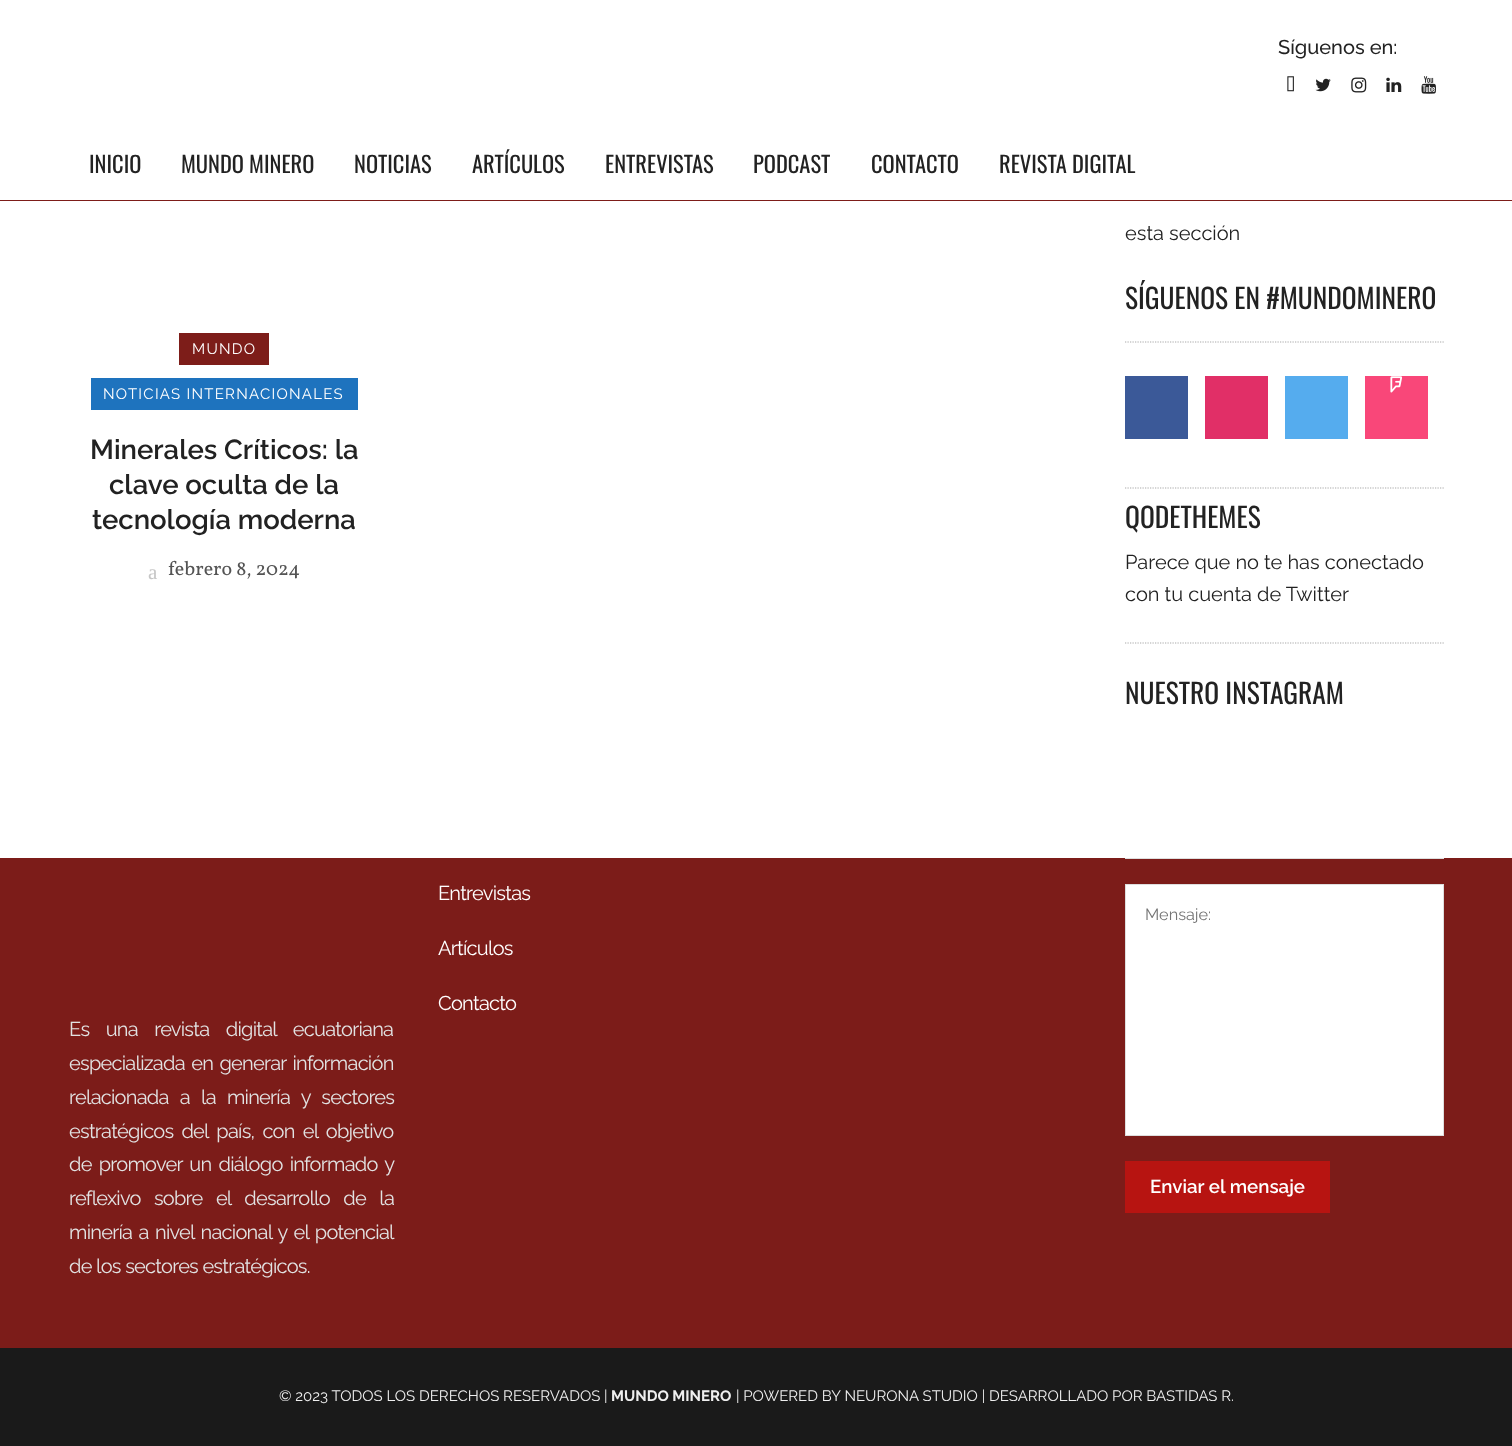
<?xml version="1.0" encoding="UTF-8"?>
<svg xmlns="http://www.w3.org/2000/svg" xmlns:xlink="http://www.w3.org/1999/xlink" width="1512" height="1446">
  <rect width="100%" height="100%" fill="#1a1a1a" />
  <rect width="1512" height="200" fill="#ffffff" />
  <rect y="200" width="1512" height="1" fill="#7d1d19" />
  <image x="1287" y="76" width="7" height="16" xlink:href="image1.png" />
  <image x="1315" y="78" width="16" height="14" xlink:href="image2.png" />
  <image x="1351" y="77" width="16" height="16" xlink:href="image3.png" />
  <image x="1386" y="77" width="16" height="15" xlink:href="image4.png" />
  <image x="1421" y="76" width="15" height="18" xlink:href="image5.png" />
  <rect y="858" width="1512" height="490" fill="#7c1c19" />
  <rect x="1125.5" y="798.5" width="318" height="60" fill="none" stroke="#dedede" />
  <rect y="201" width="1512" height="657" fill="#ffffff" />
  <rect x="179" y="333" width="90" height="32" fill="#7d1d19" />
  <rect x="91" y="378" width="267" height="32" fill="#1e73be" />
  <path d="M 1125 342 h 319" fill="none" stroke="#a9a9a9" stroke-width="1.2" stroke-dasharray="1.25 1.25" />
  <rect x="1125" y="376" width="63" height="63" fill="#3b5998" />
  <rect x="1205" y="376" width="63" height="63" fill="#e12f67" />
  <rect x="1285" y="376" width="63" height="63" fill="#55acee" />
  <rect x="1365" y="376" width="63" height="63" fill="#f94779" />
  <image x="1390" y="376" width="13" height="17" xlink:href="image6.png" />
  <path d="M 1125 488 h 319" fill="none" stroke="#a9a9a9" stroke-width="1.2" stroke-dasharray="1.25 1.25" />
  <path d="M 1125 643 h 319" fill="none" stroke="#a9a9a9" stroke-width="1.2" stroke-dasharray="1.25 1.25" />
  <rect x="1125.5" y="884.5" width="318" height="251" fill="#ffffff" stroke="#dedede" />
  <rect x="1125" y="1161" width="205" height="52" fill="#b71411" />
  <text x="1278" y="54" style="font-family: Raleway; font-size: 20px; font-weight: 500; fill: #222222">Síguenos en:</text>
  <text x="89" y="173" style="font-family: Oswald; font-size: 22.5px; fill: #222222">INICIO</text>
  <text x="181" y="173" style="font-family: Oswald; font-size: 22.5px; fill: #222222">MUNDO MINERO</text>
  <text x="354" y="173" style="font-family: Oswald; font-size: 22.5px; fill: #222222">NOTICIAS</text>
  <text x="472" y="173" style="font-family: Oswald; font-size: 22.5px; fill: #222222">ARTÍCULOS</text>
  <text x="605" y="173" style="font-family: Oswald; font-size: 22.5px; fill: #222222">ENTREVISTAS</text>
  <text x="753" y="173" style="font-family: Oswald; font-size: 22.5px; fill: #222222">PODCAST</text>
  <text x="871" y="173" style="font-family: Oswald; font-size: 22.5px; fill: #222222">CONTACTO</text>
  <text x="999" y="173" style="font-family: Oswald; font-size: 22.5px; fill: #222222">REVISTA DIGITAL</text>
  <text x="192" y="354" style="font-family: Raleway; font-size: 15px; letter-spacing: 1.25px; fill: #ffffff">MUNDO</text>
  <text x="103" y="399" style="font-family: Raleway; font-size: 15px; letter-spacing: 1.25px; fill: #ffffff">NOTICIAS INTERNACIONALES</text>
  <text x="90" y="459" style="font-family: Raleway; font-size: 27.5px; font-weight: 600; fill: #222222">Minerales Críticos: la</text>
  <text x="109" y="494" style="font-family: Raleway; font-size: 27.5px; font-weight: 600; fill: #222222">clave oculta de la</text>
  <text x="92" y="529" style="font-family: Raleway; font-size: 27.5px; font-weight: 600; fill: #222222">tecnología moderna</text>
  <text x="148" y="579" style="font-family: Liberation Serif; font-size: 21px; fill: #c6c6c6">a</text>
  <text x="168" y="575" style="font-family: Vollkorn; font-size: 20px; fill: #545454">febrero 8, 2024</text>
  <text x="1125" y="240" style="font-family: Raleway; font-size: 20px; fill: #222222">esta sección</text>
  <text x="1125" y="309" style="font-family: Oswald; font-size: 27.5px; fill: #222222">SÍGUENOS EN #MUNDOMINERO</text>
  <text x="1125" y="528" style="font-family: Oswald; font-size: 27.5px; fill: #222222">QODETHEMES</text>
  <text x="1125" y="569" style="font-family: Raleway; font-size: 20px; fill: #222222">Parece que no te has conectado</text>
  <text x="1125" y="601" style="font-family: Raleway; font-size: 20px; fill: #222222">con tu cuenta de Twitter</text>
  <text x="1125" y="704" style="font-family: Oswald; font-size: 27.5px; fill: #222222">NUESTRO INSTAGRAM</text>
  <text x="69" y="1036" word-spacing="12" style="font-family: Raleway; font-size: 20px; letter-spacing: -0.75px; fill: #e2e2e2">Es una revista digital ecuatoriana</text>
  <text x="69" y="1070" word-spacing="2" style="font-family: Raleway; font-size: 20px; letter-spacing: -0.75px; fill: #e2e2e2">especializada en generar información</text>
  <text x="69" y="1104" word-spacing="6.75" style="font-family: Raleway; font-size: 20px; letter-spacing: -0.75px; fill: #e2e2e2">relacionada a la minería y sectores</text>
  <text x="69" y="1138" word-spacing="3.75" style="font-family: Raleway; font-size: 20px; letter-spacing: -0.75px; fill: #e2e2e2">estratégicos del país, con el objetivo</text>
  <text x="69" y="1171" word-spacing="2.75" style="font-family: Raleway; font-size: 20px; letter-spacing: -0.75px; fill: #e2e2e2">de promover un diálogo informado y</text>
  <text x="69" y="1205" word-spacing="9" style="font-family: Raleway; font-size: 20px; letter-spacing: -0.75px; fill: #e2e2e2">reflexivo sobre el desarrollo de la</text>
  <text x="69" y="1239" word-spacing="2" style="font-family: Raleway; font-size: 20px; letter-spacing: -0.75px; fill: #e2e2e2">minería a nivel nacional y el potencial</text>
  <text x="69" y="1273" style="font-family: Raleway; font-size: 20px; letter-spacing: -0.75px; fill: #e2e2e2">de los sectores estratégicos.</text>
  <text x="438" y="900" style="font-family: Raleway; font-size: 20px; letter-spacing: -0.75px; fill: #ffffff">Entrevistas</text>
  <text x="438" y="955" style="font-family: Raleway; font-size: 20px; letter-spacing: -0.75px; fill: #ffffff">Artículos</text>
  <text x="438" y="1010" style="font-family: Raleway; font-size: 20px; letter-spacing: -0.75px; fill: #ffffff">Contacto</text>
  <text x="1145" y="920" style="font-family: Raleway; font-size: 16.25px; fill: #757575">Mensaje:</text>
  <text x="1150" y="1193" style="font-family: Raleway; font-size: 18.75px; font-weight: 600; fill: #ffffff">Enviar el mensaje</text>
  <text x="279" y="1401" style="font-family: Raleway; font-size: 15px; fill: #efefef">© 2023 TODOS LOS DERECHOS RESERVADOS |</text>
  <text x="611" y="1401" style="font-family: Raleway; font-size: 15px; font-weight: bold; fill: #efefef">MUNDO MINERO</text>
  <text x="736" y="1401" style="font-family: Raleway; font-size: 15px; fill: #efefef">| POWERED BY NEURONA STUDIO | DESARROLLADO POR BASTIDAS R.</text>
</svg>
